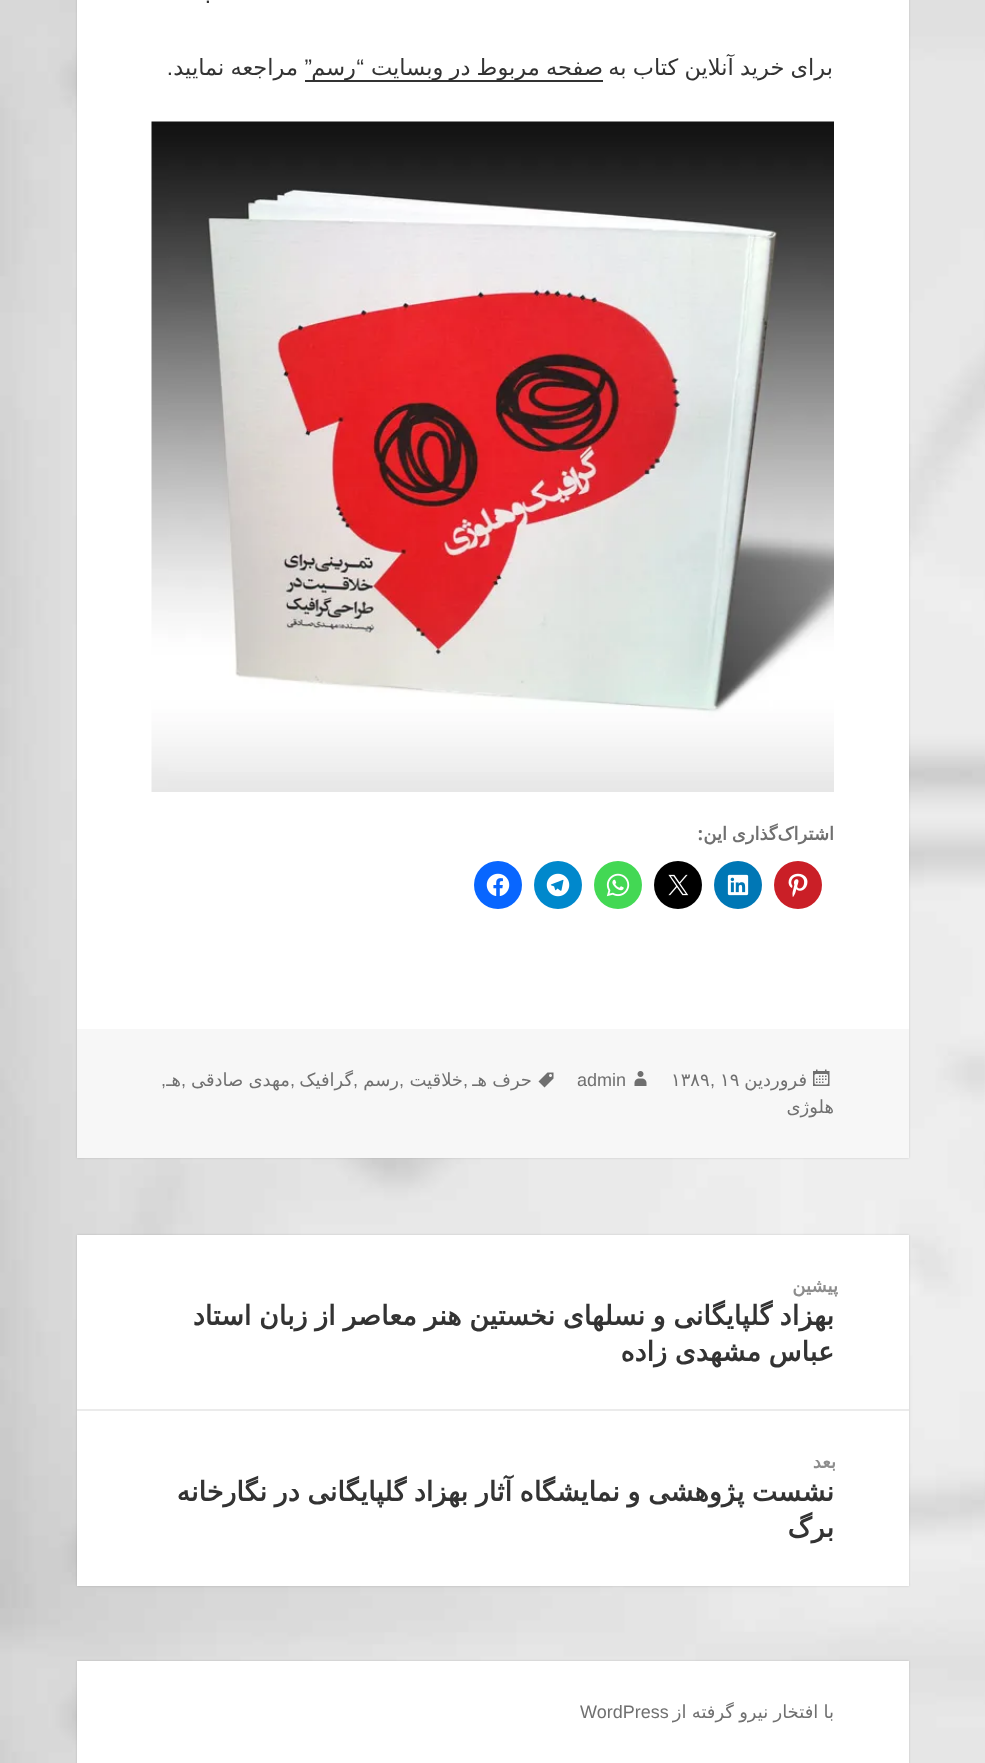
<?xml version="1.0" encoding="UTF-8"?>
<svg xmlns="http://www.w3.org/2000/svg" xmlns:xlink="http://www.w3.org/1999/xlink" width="985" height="1763">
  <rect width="100%" height="100%" fill="#ffffff" />
  <image x="0" y="0" width="985" height="1763" xlink:href="image1.png" />
  <rect x="77" y="-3" width="832" height="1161" fill="#000000" fill-opacity="0.15" filter="blur(1px)" />
  <rect x="77" width="832" height="1029" fill="#ffffff" />
  <rect x="305" y="80" width="298" height="2" fill="#333333" />
  <image x="151" y="121" width="683" height="671" xlink:href="image2.png" />
  <circle cx="798" cy="885" r="24" fill="#ca1f27" />
  <image x="788" y="873" width="20" height="24" xlink:href="image3.png" />
  <circle cx="738" cy="885" r="24" fill="#0077b5" />
  <image x="727" y="874" width="22" height="22" xlink:href="image4.png" />
  <circle cx="678" cy="885" r="24" fill="#000000" />
  <image x="668" y="874" width="21" height="22" xlink:href="image5.png" />
  <circle cx="618" cy="885" r="24" fill="#43d854" />
  <image x="606" y="873" width="24" height="24" xlink:href="image6.png" />
  <circle cx="558" cy="885" r="24" fill="#0088cc" />
  <image x="546" y="873" width="24" height="24" xlink:href="image7.png" />
  <circle cx="498" cy="885" r="24" fill="#0866ff" />
  <image x="486" y="873" width="24" height="23" xlink:href="image8.png" />
  <rect x="77" y="1029" width="832" height="129" fill="#f7f7f7" />
  <image x="538" y="1072" width="16" height="16" xlink:href="image9.png" />
  <image x="813" y="1069" width="17" height="17" xlink:href="image10.png" />
  <image x="634" y="1071" width="13" height="15" xlink:href="image11.png" />
  <rect x="77" y="1235" width="832" height="351" fill="#000000" fill-opacity="0.15" filter="blur(1px)" />
  <rect x="77" y="1235" width="832" height="351" fill="#ffffff" />
  <rect x="77" y="1409" width="832" height="2" fill="#ebebeb" />
  <rect x="77" y="1661" width="832" height="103" fill="#000000" fill-opacity="0.15" filter="blur(1px)" />
  <rect x="77" y="1661" width="832" height="102" fill="#ffffff" />
  <text x="211" y="3" style="font-family: Liberation Sans; font-size: 22.5px; direction: rtl; fill: #333333">.</text>
  <text x="833" y="75" word-spacing="-1" style="font-family: DejaVu Sans; font-size: 22.5px; direction: rtl; fill: #333333">برای خرید آنلاین کتاب به</text>
  <text x="603" y="75" word-spacing="-1" style="font-family: DejaVu Sans; font-size: 22.5px; direction: rtl; fill: #333333">صفحه مربوط در وبسایت</text>
  <text x="364" y="75" style="font-family: Liberation Sans; font-size: 22.5px; direction: rtl; fill: #333333">“</text>
  <text x="312" y="75" style="font-family: Liberation Sans; font-size: 22.5px; direction: rtl; fill: #333333">”</text>
  <text x="298" y="75" word-spacing="-1" style="font-family: DejaVu Sans; font-size: 22.5px; direction: rtl; fill: #333333">مراجعه نمایید</text>
  <text x="356" y="75" style="font-family: DejaVu Sans; font-size: 22.5px; direction: rtl; fill: #333333">رسم</text>
  <text x="173" y="75" style="font-family: Liberation Sans; font-size: 22.5px; direction: rtl; fill: #333333">.</text>
  <text x="834" y="840" word-spacing="-1" style="font-family: DejaVu Sans; font-size: 18px; font-weight: bold; direction: rtl; fill: #707070">اشتراک‌گذاری این</text>
  <text x="703" y="840" style="font-family: Noto Sans; font-size: 18px; font-weight: bold; direction: rtl; fill: #707070">:</text>
  <text x="532" y="1086" word-spacing="-0.5" style="font-family: DejaVu Sans; font-size: 18px; direction: rtl; fill: #707070">حرف هـ</text>
  <text x="463" y="1086" style="font-family: Liberation Sans; font-size: 18px; fill: #707070">,</text>
  <text x="463" y="1086" style="font-family: DejaVu Sans; font-size: 18px; direction: rtl; fill: #707070">خلاقیت</text>
  <text x="399" y="1086" style="font-family: Liberation Sans; font-size: 18px; fill: #707070">,</text>
  <text x="399" y="1086" style="font-family: DejaVu Sans; font-size: 18px; direction: rtl; fill: #707070">رسم</text>
  <text x="353" y="1086" style="font-family: Liberation Sans; font-size: 18px; fill: #707070">,</text>
  <text x="353" y="1086" style="font-family: DejaVu Sans; font-size: 18px; direction: rtl; fill: #707070">گرافیک</text>
  <text x="290" y="1086" style="font-family: Liberation Sans; font-size: 18px; fill: #707070">,</text>
  <text x="290" y="1086" word-spacing="-0.5" style="font-family: DejaVu Sans; font-size: 18px; direction: rtl; fill: #707070">مهدی صادقی</text>
  <text x="181" y="1086" style="font-family: Liberation Sans; font-size: 18px; fill: #707070">,</text>
  <text x="181" y="1086" style="font-family: DejaVu Sans; font-size: 18px; direction: rtl; fill: #707070">هـ</text>
  <text x="161" y="1086" style="font-family: Liberation Sans; font-size: 18px; fill: #707070">,</text>
  <text x="834" y="1113" style="font-family: DejaVu Sans; font-size: 18px; direction: rtl; fill: #707070">هلوژی</text>
  <text x="807" y="1086" style="font-family: DejaVu Sans; font-size: 18px; direction: rtl; fill: #707070">فروردین</text>
  <text x="720" y="1086" style="font-family: DejaVu Sans; font-size: 18px; fill: #707070">۱۹</text>
  <text x="710" y="1086" style="font-family: Liberation Sans; font-size: 18px; fill: #707070">,</text>
  <text x="671" y="1086" style="font-family: DejaVu Sans; font-size: 18px; fill: #707070">۱۳۸۹</text>
  <text x="577" y="1086" style="font-family: Liberation Sans; font-size: 18px; fill: #707070">admin</text>
  <text x="838" y="1292" style="font-family: DejaVu Sans; font-size: 18px; font-weight: bold; letter-spacing: 0.75px; direction: rtl; fill: #8d8d8d">پیشین</text>
  <text x="834" y="1325" word-spacing="-1" style="font-family: DejaVu Sans; font-size: 27px; font-weight: bold; direction: rtl; fill: #333333">بهزاد گلپایگانی و نسلهای نخستین هنر معاصر از زبان استاد</text>
  <text x="834" y="1361" word-spacing="-1" style="font-family: DejaVu Sans; font-size: 27px; font-weight: bold; direction: rtl; fill: #333333">عباس مشهدی زاده</text>
  <text x="836" y="1468" style="font-family: DejaVu Sans; font-size: 18px; font-weight: bold; letter-spacing: 0.75px; direction: rtl; fill: #8d8d8d">بعد</text>
  <text x="834" y="1501" word-spacing="-1" style="font-family: DejaVu Sans; font-size: 27px; font-weight: bold; direction: rtl; fill: #333333">نشست پژوهشی و نمایشگاه آثار بهزاد گلپایگانی در نگارخانه</text>
  <text x="834" y="1537" style="font-family: DejaVu Sans; font-size: 27px; font-weight: bold; direction: rtl; fill: #333333">برگ</text>
  <text x="834" y="1718" word-spacing="-0.5" style="font-family: DejaVu Sans; font-size: 18px; direction: rtl; fill: #707070">با افتخار نیرو گرفته از</text>
  <text x="580" y="1718" style="font-family: Liberation Sans; font-size: 18px; fill: #707070">WordPress</text>
</svg>
